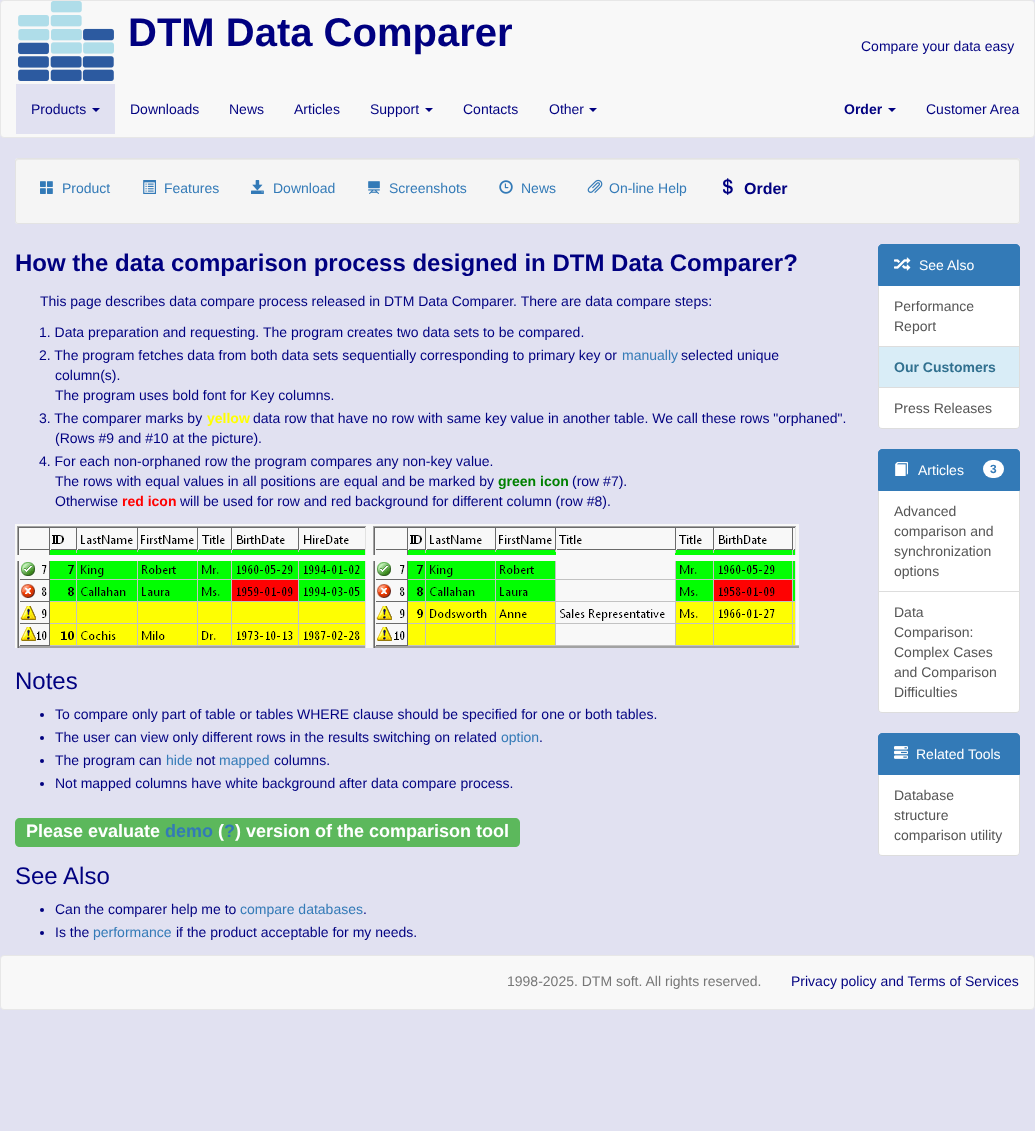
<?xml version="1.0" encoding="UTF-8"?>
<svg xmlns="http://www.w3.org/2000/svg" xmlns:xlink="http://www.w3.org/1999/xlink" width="1035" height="1131">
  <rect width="100%" height="100%" fill="#e1e1f1" />
  <rect x="0.5" y="0.5" width="1034" height="137" rx="3.5" fill="#f8f8f8" stroke="#e7e7e7" />
  <image x="18" y="1" width="96" height="80" xlink:href="image1.png" />
  <rect x="16" y="84" width="99" height="50" fill="#e1e1f1" />
  <path d="M 92 108 h 8 l -4 4 z" fill="#000080" />
  <path d="M 425 108 h 8 l -4 4 z" fill="#000080" />
  <path d="M 589 108 h 8 l -4 4 z" fill="#000080" />
  <path d="M 888 108 h 8 l -4 4 z" fill="#000080" />
  <rect x="15" y="158" width="1005" height="66" rx="3" fill="#f5f5f5" />
  <path d="M 18 160 h 999 c 1 0 2 1 2 2 v -1 c 0 -1 -1 -2 -2 -2 h -999 c -1 0 -2 1 -2 2 v 1 c 0 -1 1 -2 2 -2 z" fill="#e9e9e9" />
  <rect x="15.5" y="158.5" width="1004" height="65" rx="2.5" fill="none" stroke="#e3e3e3" />
  <image x="40" y="181" width="13" height="13" xlink:href="image2.png" />
  <image x="143" y="180" width="13" height="14" xlink:href="image3.png" />
  <image x="251" y="180" width="13" height="14" xlink:href="image4.png" />
  <image x="368" y="181" width="12" height="13" xlink:href="image5.png" />
  <image x="499" y="180" width="14" height="14" xlink:href="image6.png" />
  <image x="587" y="179" width="16" height="14" xlink:href="image7.png" />
  <image x="723" y="178" width="10" height="17" xlink:href="image8.png" />
  <image x="15" y="524" width="784" height="124" xlink:href="image9.png" />
  <circle cx="42" cy="715" r="2" fill="#000080" />
  <circle cx="42" cy="738" r="2" fill="#000080" />
  <circle cx="42" cy="761" r="2" fill="#000080" />
  <circle cx="42" cy="784" r="2" fill="#000080" />
  <path d="M 20 818 h 145 v 29 h -145 c -3 0 -5 -2 -5 -5 v -19 c 0 -3 2 -5 5 -5 z" fill="#5cb85c" />
  <rect x="165" y="818" width="70" height="29" fill="#5cb85c" />
  <path d="M 235 818 h 280 c 3 0 5 2 5 5 v 19 c 0 3 -2 5 -5 5 h -280 z" fill="#5cb85c" />
  <circle cx="42" cy="910" r="2" fill="#000080" />
  <circle cx="42" cy="933" r="2" fill="#000080" />
  <rect x="878.5" y="285.5" width="141" height="61" fill="#ffffff" stroke="#dddddd" />
  <path d="M 882 244.5 h 134 c 2 0 3.5 1.5 3.5 3.5 v 37.5 h -141 v -37.5 c 0 -2 1.5 -3.5 3.5 -3.5 z" fill="#337ab7" stroke="#337ab7" />
  <image x="894" y="257" width="17" height="14" xlink:href="image10.png" />
  <rect x="878.5" y="346.5" width="141" height="41" fill="#d9edf7" stroke="#dddddd" />
  <path d="M 878.5 387.5 h 141 v 37.5 c 0 2 -1.5 3.5 -3.5 3.5 h -134 c -2 0 -3.5 -1.5 -3.5 -3.5 z" fill="#ffffff" stroke="#dddddd" />
  <rect x="878.5" y="490.5" width="141" height="101" fill="#ffffff" stroke="#dddddd" />
  <path d="M 882 449.5 h 134 c 2 0 3.5 1.5 3.5 3.5 v 37.5 h -141 v -37.5 c 0 -2 1.5 -3.5 3.5 -3.5 z" fill="#337ab7" stroke="#337ab7" />
  <image x="895" y="462" width="13" height="14" xlink:href="image11.png" />
  <rect x="983" y="460" width="21" height="18" rx="9" fill="#ffffff" />
  <path d="M 878.5 591.5 h 141 v 117.5 c 0 2 -1.5 3.5 -3.5 3.5 h -134 c -2 0 -3.5 -1.5 -3.5 -3.5 z" fill="#ffffff" stroke="#dddddd" />
  <path d="M 878.5 774.5 h 141 v 77.5 c 0 2 -1.5 3.5 -3.5 3.5 h -134 c -2 0 -3.5 -1.5 -3.5 -3.5 z" fill="#ffffff" stroke="#dddddd" />
  <path d="M 882 733.5 h 134 c 2 0 3.5 1.5 3.5 3.5 v 37.5 h -141 v -37.5 c 0 -2 1.5 -3.5 3.5 -3.5 z" fill="#337ab7" stroke="#337ab7" />
  <image x="894" y="746" width="14" height="13" xlink:href="image12.png" />
  <rect x="0.5" y="955.5" width="1034" height="54" rx="3.5" fill="#f8f8f8" stroke="#e7e7e7" />
  <text x="128" y="46" style="font-family: Liberation Sans; font-size: 40px; font-weight: bold; fill: #000080">DTM Data Comparer</text>
  <text x="861" y="51" style="font-family: Liberation Sans; font-size: 14px; fill: #000080">Compare your data easy</text>
  <text x="31" y="114" style="font-family: Liberation Sans; font-size: 14px; fill: #000080">Products</text>
  <text x="130" y="114" style="font-family: Liberation Sans; font-size: 14px; fill: #000080">Downloads</text>
  <text x="229" y="114" style="font-family: Liberation Sans; font-size: 14px; fill: #000080">News</text>
  <text x="294" y="114" style="font-family: Liberation Sans; font-size: 14px; fill: #000080">Articles</text>
  <text x="370" y="114" style="font-family: Liberation Sans; font-size: 14px; fill: #000080">Support</text>
  <text x="463" y="114" style="font-family: Liberation Sans; font-size: 14px; fill: #000080">Contacts</text>
  <text x="549" y="114" style="font-family: Liberation Sans; font-size: 14px; fill: #000080">Other</text>
  <text x="844" y="114" style="font-family: Liberation Sans; font-size: 14px; font-weight: bold; fill: #000080">Order</text>
  <text x="926" y="114" style="font-family: Liberation Sans; font-size: 14px; fill: #000080">Customer Area</text>
  <text x="62" y="193" style="font-family: Liberation Sans; font-size: 14px; fill: #337ab7">Product</text>
  <text x="164" y="193" style="font-family: Liberation Sans; font-size: 14px; fill: #337ab7">Features</text>
  <text x="273" y="193" style="font-family: Liberation Sans; font-size: 14px; fill: #337ab7">Download</text>
  <text x="389" y="193" style="font-family: Liberation Sans; font-size: 14px; fill: #337ab7">Screenshots</text>
  <text x="521" y="193" style="font-family: Liberation Sans; font-size: 14px; fill: #337ab7">News</text>
  <text x="609" y="193" style="font-family: Liberation Sans; font-size: 14px; fill: #337ab7">On-line Help</text>
  <text x="744" y="194" style="font-family: Liberation Sans; font-size: 16px; font-weight: bold; fill: #000080">Order</text>
  <text x="15" y="271" style="font-family: Liberation Sans; font-size: 24px; font-weight: bold; fill: #000080">How the data comparison process designed in DTM Data Comparer?</text>
  <text x="40" y="306" style="font-family: Liberation Sans; font-size: 14px; fill: #000080">This page describes data compare process released in DTM Data Comparer. There are data compare steps:</text>
  <text x="39" y="337" style="font-family: Liberation Sans; font-size: 14px; fill: #000080">1. Data preparation and requesting. The program creates two data sets to be compared.</text>
  <text x="39" y="360" style="font-family: Liberation Sans; font-size: 14px; fill: #000080">2. The program fetches data from both data sets sequentially corresponding to primary key or</text>
  <text x="622" y="360" style="font-family: Liberation Sans; font-size: 14px; fill: #337ab7">manually</text>
  <text x="681" y="360" style="font-family: Liberation Sans; font-size: 14px; fill: #000080">selected unique</text>
  <text x="55" y="380" style="font-family: Liberation Sans; font-size: 14px; fill: #000080">column(s).</text>
  <text x="55" y="400" style="font-family: Liberation Sans; font-size: 14px; fill: #000080">The program uses bold font for Key columns.</text>
  <text x="39" y="423" style="font-family: Liberation Sans; font-size: 14px; fill: #000080">3. The comparer marks by</text>
  <text x="207" y="423" style="font-family: Liberation Sans; font-size: 14px; font-weight: bold; fill: #ffff00">yellow</text>
  <text x="253" y="423" style="font-family: Liberation Sans; font-size: 14px; fill: #000080">data row that have no row with same key value in another table. We call these rows "orphaned".</text>
  <text x="55" y="443" style="font-family: Liberation Sans; font-size: 14px; fill: #000080">(Rows #9 and #10 at the picture).</text>
  <text x="39" y="466" style="font-family: Liberation Sans; font-size: 14px; fill: #000080">4. For each non-orphaned row the program compares any non-key value.</text>
  <text x="55" y="486" style="font-family: Liberation Sans; font-size: 14px; fill: #000080">The rows with equal values in all positions are equal and be marked by</text>
  <text x="498" y="486" style="font-family: Liberation Sans; font-size: 14px; font-weight: bold; fill: #008000">green icon</text>
  <text x="572" y="486" style="font-family: Liberation Sans; font-size: 14px; fill: #000080">(row #7).</text>
  <text x="55" y="506" style="font-family: Liberation Sans; font-size: 14px; fill: #000080">Otherwise</text>
  <text x="122" y="506" style="font-family: Liberation Sans; font-size: 14px; font-weight: bold; fill: #ff0000">red icon</text>
  <text x="180" y="506" style="font-family: Liberation Sans; font-size: 14px; fill: #000080">will be used for row and red background for different column (row #8).</text>
  <text x="15" y="689" style="font-family: Liberation Sans; font-size: 24px; fill: #000080">Notes</text>
  <text x="55" y="719" style="font-family: Liberation Sans; font-size: 14px; fill: #000080">To compare only part of table or tables WHERE clause should be specified for one or both tables.</text>
  <text x="55" y="742" style="font-family: Liberation Sans; font-size: 14px; fill: #000080">The user can view only different rows in the results switching on related</text>
  <text x="501" y="742" style="font-family: Liberation Sans; font-size: 14px; fill: #337ab7">option</text>
  <text x="539" y="742" style="font-family: Liberation Sans; font-size: 14px; fill: #000080">.</text>
  <text x="55" y="765" style="font-family: Liberation Sans; font-size: 14px; fill: #000080">The program can</text>
  <text x="166" y="765" style="font-family: Liberation Sans; font-size: 14px; fill: #337ab7">hide</text>
  <text x="196" y="765" style="font-family: Liberation Sans; font-size: 14px; fill: #000080">not</text>
  <text x="219" y="765" style="font-family: Liberation Sans; font-size: 14px; fill: #337ab7">mapped</text>
  <text x="274" y="765" style="font-family: Liberation Sans; font-size: 14px; fill: #000080">columns.</text>
  <text x="55" y="788" style="font-family: Liberation Sans; font-size: 14px; fill: #000080">Not mapped columns have white background after data compare process.</text>
  <text x="26" y="837" style="font-family: Liberation Sans; font-size: 18px; font-weight: bold; fill: #ffffff">Please evaluate</text>
  <text x="165" y="837" style="font-family: Liberation Sans; font-size: 18px; font-weight: bold; fill: #337ab7">demo</text>
  <text x="218" y="837" style="font-family: Liberation Sans; font-size: 18px; font-weight: bold; fill: #ffffff">(</text>
  <text x="224" y="837" style="font-family: Liberation Sans; font-size: 18px; font-weight: bold; fill: #337ab7">?</text>
  <text x="235" y="837" style="font-family: Liberation Sans; font-size: 18px; font-weight: bold; fill: #ffffff">) version of the comparison tool</text>
  <text x="15" y="884" style="font-family: Liberation Sans; font-size: 24px; fill: #000080">See Also</text>
  <text x="55" y="914" style="font-family: Liberation Sans; font-size: 14px; fill: #000080">Can the comparer help me to</text>
  <text x="240" y="914" style="font-family: Liberation Sans; font-size: 14px; fill: #337ab7">compare databases</text>
  <text x="363" y="914" style="font-family: Liberation Sans; font-size: 14px; fill: #000080">.</text>
  <text x="55" y="937" style="font-family: Liberation Sans; font-size: 14px; fill: #000080">Is the</text>
  <text x="93" y="937" style="font-family: Liberation Sans; font-size: 14px; fill: #337ab7">performance</text>
  <text x="176" y="937" style="font-family: Liberation Sans; font-size: 14px; fill: #000080">if the product acceptable for my needs.</text>
  <text x="919" y="270" style="font-family: Liberation Sans; font-size: 14px; fill: #ffffff">See Also</text>
  <text x="894" y="311" style="font-family: Liberation Sans; font-size: 14px; fill: #555555">Performance</text>
  <text x="894" y="331" style="font-family: Liberation Sans; font-size: 14px; fill: #555555">Report</text>
  <text x="894" y="372" style="font-family: Liberation Sans; font-size: 14px; font-weight: bold; fill: #31708f">Our Customers</text>
  <text x="894" y="413" style="font-family: Liberation Sans; font-size: 14px; fill: #555555">Press Releases</text>
  <text x="918" y="475" style="font-family: Liberation Sans; font-size: 14px; fill: #ffffff">Articles</text>
  <text x="990" y="473" style="font-family: Liberation Sans; font-size: 12px; font-weight: bold; fill: #337ab7">3</text>
  <text x="894" y="516" style="font-family: Liberation Sans; font-size: 14px; fill: #555555">Advanced</text>
  <text x="894" y="536" style="font-family: Liberation Sans; font-size: 14px; fill: #555555">comparison and</text>
  <text x="894" y="556" style="font-family: Liberation Sans; font-size: 14px; fill: #555555">synchronization</text>
  <text x="894" y="576" style="font-family: Liberation Sans; font-size: 14px; fill: #555555">options</text>
  <text x="894" y="617" style="font-family: Liberation Sans; font-size: 14px; fill: #555555">Data</text>
  <text x="894" y="637" style="font-family: Liberation Sans; font-size: 14px; fill: #555555">Comparison:</text>
  <text x="894" y="657" style="font-family: Liberation Sans; font-size: 14px; fill: #555555">Complex Cases</text>
  <text x="894" y="677" style="font-family: Liberation Sans; font-size: 14px; fill: #555555">and Comparison</text>
  <text x="894" y="697" style="font-family: Liberation Sans; font-size: 14px; fill: #555555">Difficulties</text>
  <text x="916" y="759" style="font-family: Liberation Sans; font-size: 14px; fill: #ffffff">Related Tools</text>
  <text x="894" y="800" style="font-family: Liberation Sans; font-size: 14px; fill: #555555">Database</text>
  <text x="894" y="820" style="font-family: Liberation Sans; font-size: 14px; fill: #555555">structure</text>
  <text x="894" y="840" style="font-family: Liberation Sans; font-size: 14px; fill: #555555">comparison utility</text>
  <text x="507" y="986" style="font-family: Liberation Sans; font-size: 14px; fill: #777777">1998-2025. DTM soft. All rights reserved.</text>
  <text x="791" y="986" style="font-family: Liberation Sans; font-size: 14px; fill: #000080">Privacy policy and Terms of Services</text>
</svg>
